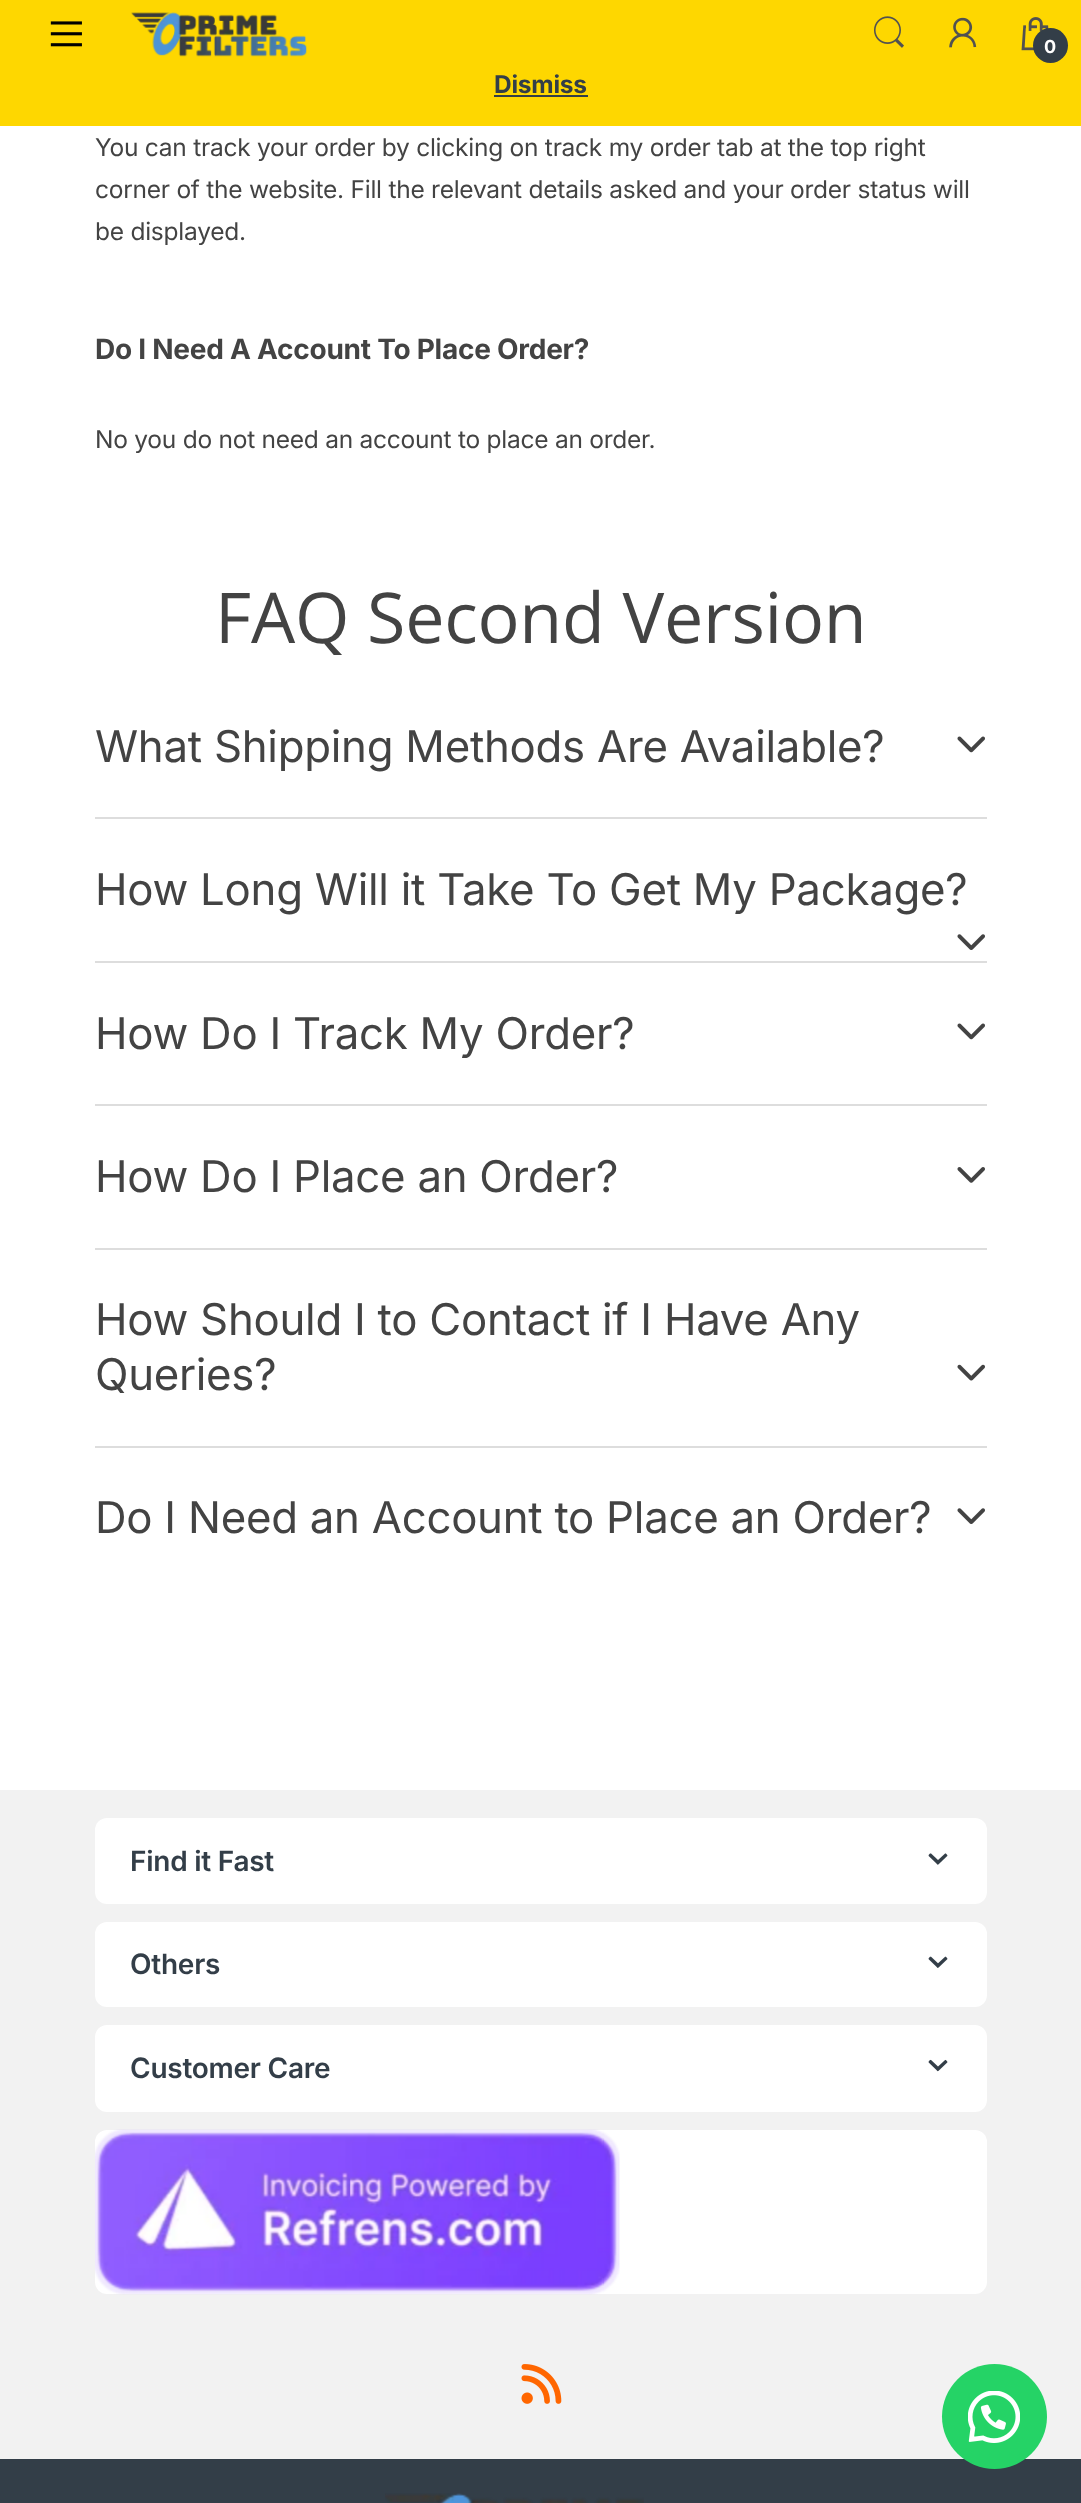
<?xml version="1.0" encoding="UTF-8"?>
<svg xmlns="http://www.w3.org/2000/svg" xmlns:xlink="http://www.w3.org/1999/xlink" width="1081" height="2503">
  <rect width="100%" height="100%" fill="#ffffff" />
  <rect width="1081" height="126" fill="#fed700" />
  <image x="50" y="21" width="32" height="26" xlink:href="image1.png" />
  <image x="131" y="12" width="176" height="45" xlink:href="image2.png" />
  <image x="874" y="16" width="30" height="32" xlink:href="image3.png" />
  <image x="949" y="17" width="28" height="31" xlink:href="image4.png" />
  <image x="1021" y="17" width="28" height="34" xlink:href="image5.png" />
  <circle cx="1050.5" cy="45.5" r="17.5" fill="#333e48" />
  <rect x="95" y="817" width="892" height="2" fill="#dddddd" />
  <image x="957" y="736" width="28" height="17" xlink:href="image6.png" />
  <rect x="95" y="961" width="892" height="2" fill="#dddddd" />
  <image x="957" y="934" width="28" height="16" xlink:href="image7.png" />
  <rect x="95" y="1104" width="892" height="2" fill="#dddddd" />
  <image x="957" y="1023" width="28" height="17" xlink:href="image6.png" />
  <rect x="95" y="1248" width="892" height="2" fill="#dddddd" />
  <image x="957" y="1167" width="28" height="16" xlink:href="image8.png" />
  <rect x="95" y="1446" width="892" height="2" fill="#dddddd" />
  <image x="957" y="1364" width="28" height="17" xlink:href="image9.png" />
  <image x="957" y="1508" width="28" height="16" xlink:href="image7.png" />
  <rect y="1790" width="1081" height="669" fill="#f2f2f2" />
  <rect x="95" y="1818" width="892" height="86" rx="12" fill="#ffffff" />
  <image x="928" y="1853" width="20" height="12" xlink:href="image10.png" />
  <rect x="95" y="1922" width="892" height="85" rx="12" fill="#ffffff" />
  <image x="928" y="1956" width="20" height="12" xlink:href="image11.png" />
  <rect x="95" y="2025" width="892" height="87" rx="12" fill="#ffffff" />
  <image x="928" y="2059" width="20" height="13" xlink:href="image12.png" />
  <rect x="95" y="2130" width="892" height="164" rx="12" fill="#ffffff" />
  <image x="95" y="2129" width="525" height="166" xlink:href="image13.png" />
  <image x="521" y="2364" width="41" height="40" xlink:href="image14.png" />
  <rect y="2459" width="1081" height="44" fill="#333e48" />
  <image x="385" y="2493" width="259" height="10" xlink:href="image15.png" />
  <rect x="494" y="95" width="94" height="2" fill="#333e48" />
  <circle cx="994.5" cy="2416.5" r="52.5" fill="#25d366" />
  <image x="968" y="2391" width="52" height="52" xlink:href="image16.png" />
  <text x="1044" y="53" style="font-family: Inter; font-size: 18px; font-weight: bold; letter-spacing: -0.25px; fill: #ffffff">0</text>
  <text x="95" y="156" style="font-family: Inter; font-size: 24.5px; letter-spacing: -0.25px; fill: #434343">You can track your order by clicking on track my order tab at the top right</text>
  <text x="95" y="198" style="font-family: Inter; font-size: 24.5px; letter-spacing: -0.25px; fill: #434343">corner of the website. Fill the relevant details asked and your order status will</text>
  <text x="95" y="240" style="font-family: Inter; font-size: 24.5px; letter-spacing: -0.25px; fill: #434343">be displayed.</text>
  <text x="95" y="359" style="font-family: Inter; font-size: 28px; font-weight: bold; letter-spacing: -0.25px; fill: #434343">Do I Need A Account To Place Order?</text>
  <text x="95" y="448" style="font-family: Inter; font-size: 24.5px; letter-spacing: -0.25px; fill: #434343">No you do not need an account to place an order.</text>
  <text x="215" y="643" style="font-family: Open Sans; font-size: 70px; letter-spacing: -0.25px; fill: #434343">FAQ Second Version</text>
  <text x="95" y="762" style="font-family: Inter; font-size: 43.75px; letter-spacing: -0.25px; fill: #434343">What Shipping Methods Are Available?</text>
  <text x="95" y="905" style="font-family: Inter; font-size: 43.75px; letter-spacing: -0.25px; fill: #434343">How Long Will it Take To Get My Package?</text>
  <text x="95" y="1049" style="font-family: Inter; font-size: 43.75px; letter-spacing: -0.25px; fill: #434343">How Do I Track My Order?</text>
  <text x="95" y="1192" style="font-family: Inter; font-size: 43.75px; letter-spacing: -0.25px; fill: #434343">How Do I Place an Order?</text>
  <text x="95" y="1335" style="font-family: Inter; font-size: 43.75px; letter-spacing: -0.25px; fill: #434343">How Should I to Contact if I Have Any</text>
  <text x="95" y="1390" style="font-family: Inter; font-size: 43.75px; letter-spacing: -0.25px; fill: #434343">Queries?</text>
  <text x="95" y="1533" style="font-family: Inter; font-size: 43.75px; letter-spacing: -0.25px; fill: #434343">Do I Need an Account to Place an Order?</text>
  <text x="130" y="1871" style="font-family: Inter; font-size: 28px; font-weight: 600; letter-spacing: -0.25px; fill: #333e48">Find it Fast</text>
  <text x="130" y="1974" style="font-family: Inter; font-size: 28px; font-weight: 600; letter-spacing: -0.25px; fill: #333e48">Others</text>
  <text x="130" y="2078" style="font-family: Inter; font-size: 28px; font-weight: 600; letter-spacing: -0.25px; fill: #333e48">Customer Care</text>
  <text x="494" y="93" style="font-family: Inter; font-size: 24.5px; font-weight: bold; letter-spacing: -0.25px; fill: #333e48">Dismiss</text>
</svg>
